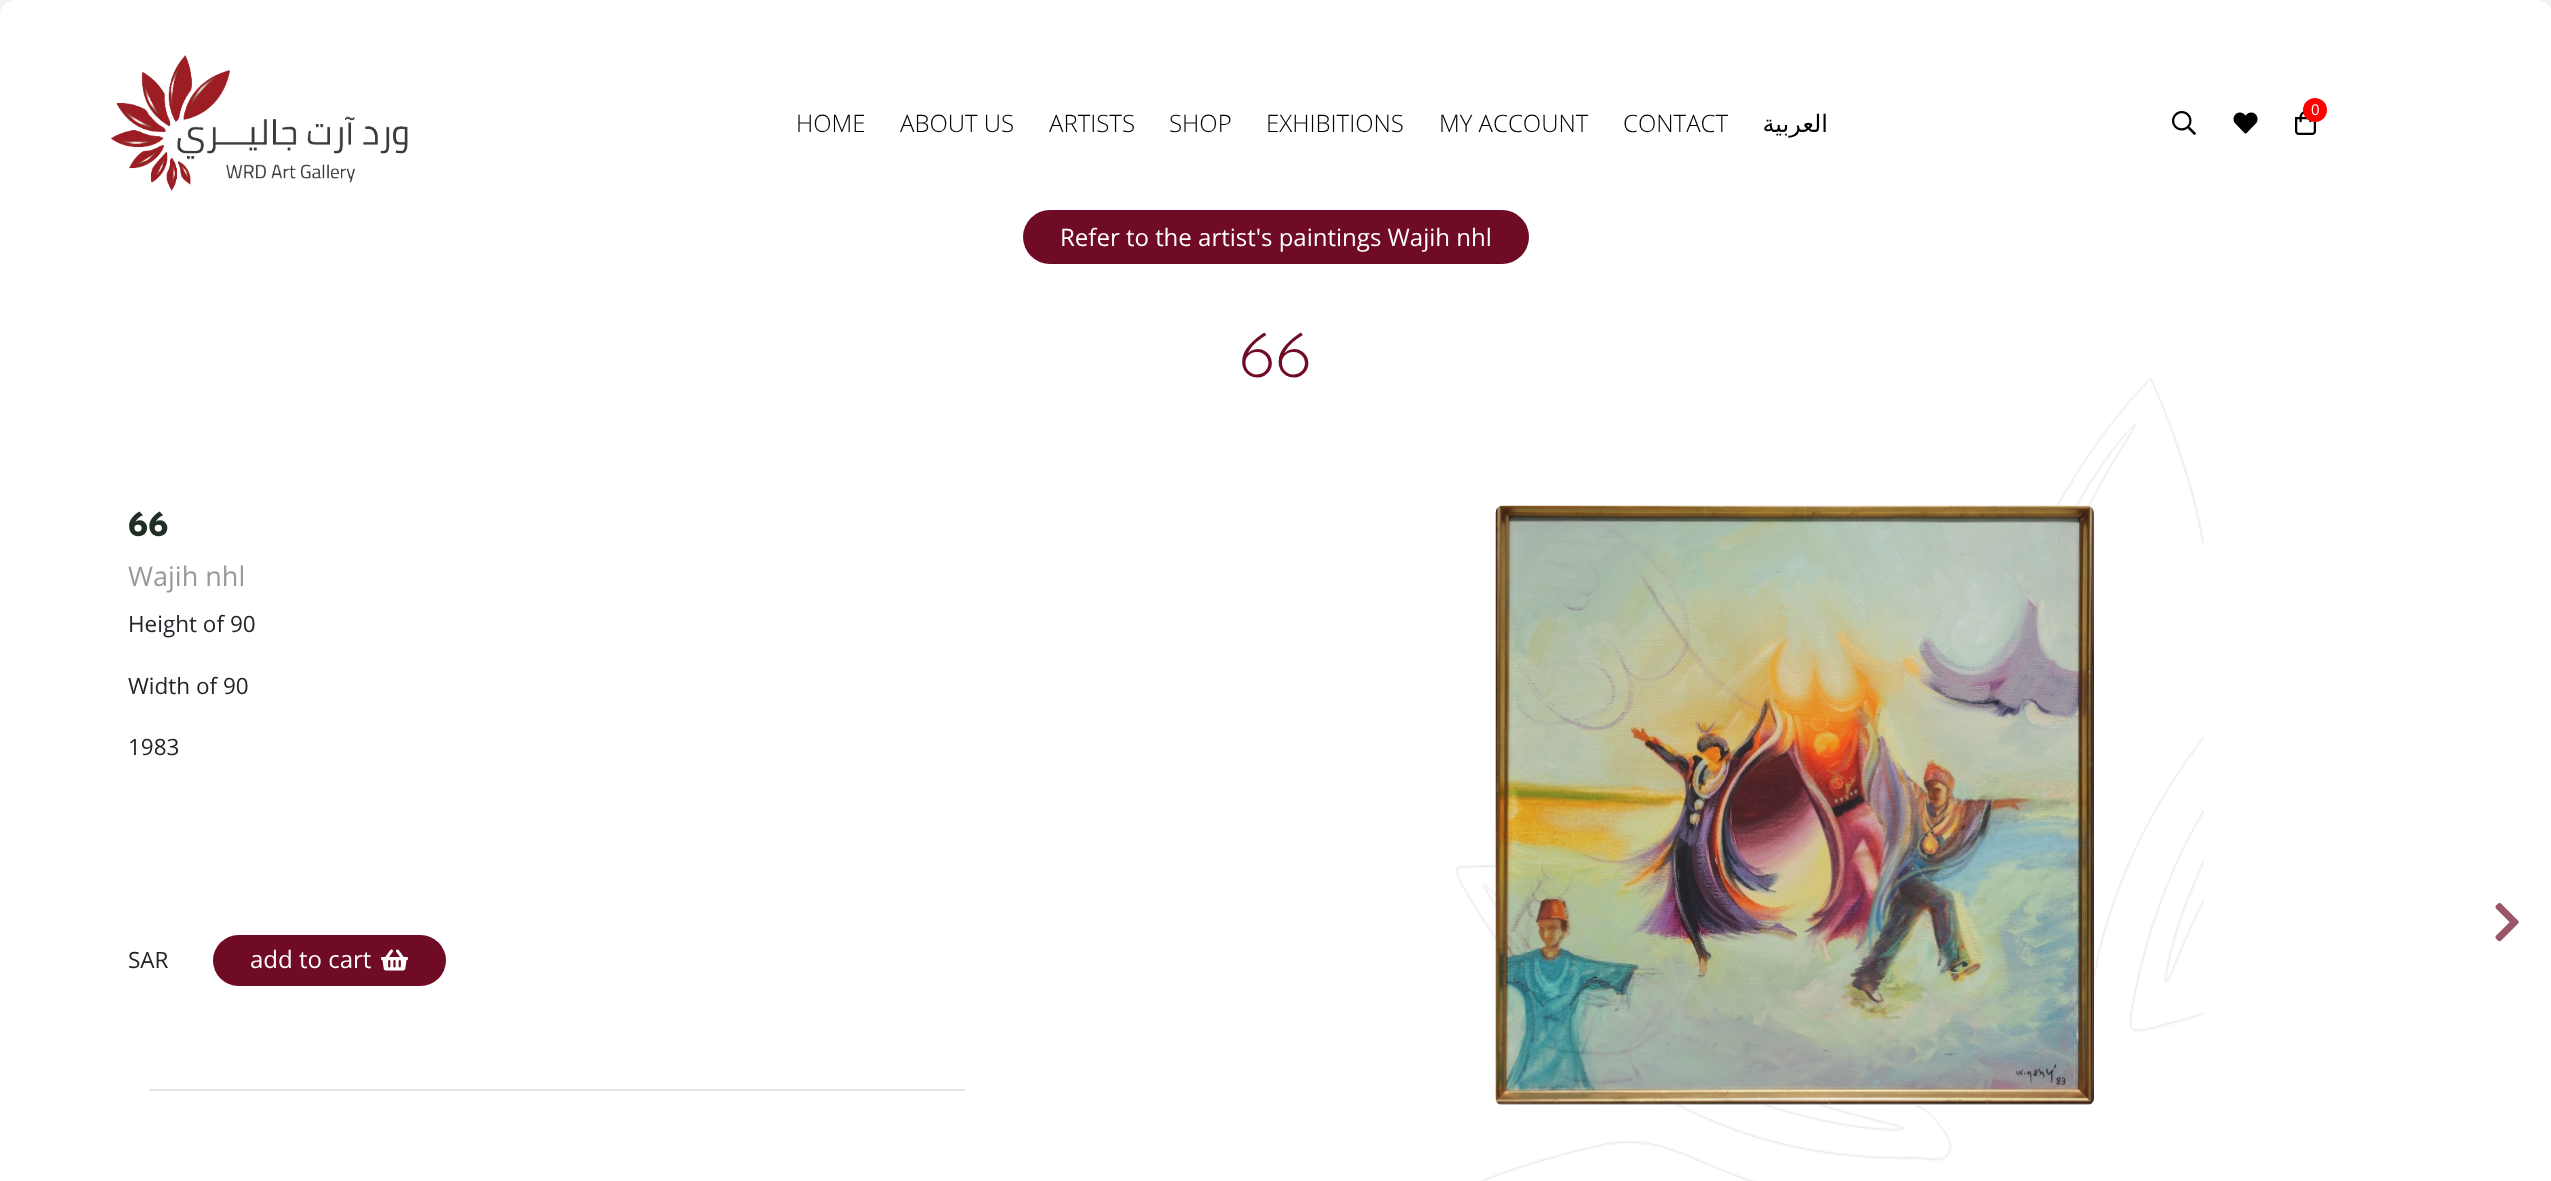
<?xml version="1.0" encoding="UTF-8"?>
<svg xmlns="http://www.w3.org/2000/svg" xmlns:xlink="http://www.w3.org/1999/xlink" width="2551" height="1181">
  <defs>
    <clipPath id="clip1"><path d="M 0 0 h 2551 v 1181 h -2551 z m 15 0 h 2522 c 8.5 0 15 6.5 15 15 v 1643 c 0 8.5 -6.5 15 -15 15 h -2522 c -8.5 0 -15 -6.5 -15 -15 v -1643 c 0 -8.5 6.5 -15 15 -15 z" clip-rule="evenodd" /></clipPath>
  </defs>
  <rect width="100%" height="100%" fill="#ffffff" />
  <g clip-path="url(#clip1)">
    <rect width="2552" height="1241" rx="15" fill="#000000" fill-opacity="0.16" filter="blur(15px)" />
  </g>
  <image x="111" y="55" width="297" height="136" xlink:href="image1.png" />
  <image x="2172" y="111" width="24" height="24" xlink:href="image2.png" />
  <image x="2233" y="112" width="25" height="22" xlink:href="image3.png" />
  <image x="2295" y="111" width="21" height="24" xlink:href="image4.png" />
  <circle cx="2315" cy="110" r="12" fill="#ff0000" />
  <rect x="1023" y="210" width="506" height="54" rx="27" fill="#6f0b24" />
  <rect x="213" y="935" width="233" height="51" rx="25.5" fill="#6f0b24" />
  <image x="381" y="949" width="27" height="22" xlink:href="image5.png" />
  <rect x="149" y="1089" width="816" height="2" fill="#e6e6e6" />
  <image x="1456" y="378" width="748" height="803" xlink:href="image6.png" />
  <image x="1495" y="505" width="599" height="600" xlink:href="image7.png" />
  <image x="2495" y="903" width="24" height="39" xlink:href="image8.png" />
  <text x="2311" y="115" style="font-family: Open Sans; font-size: 15px; fill: #ffffff">0</text>
  <text x="796" y="132" style="font-family: Open Sans; font-size: 24px; font-weight: 300; fill: #000000">HOME</text>
  <text x="900" y="132" style="font-family: Open Sans; font-size: 24px; font-weight: 300; fill: #000000">ABOUT US</text>
  <text x="1049" y="132" style="font-family: Open Sans; font-size: 24px; font-weight: 300; fill: #000000">ARTISTS</text>
  <text x="1169" y="132" style="font-family: Open Sans; font-size: 24px; font-weight: 300; fill: #000000">SHOP</text>
  <text x="1266" y="132" style="font-family: Open Sans; font-size: 24px; font-weight: 300; fill: #000000">EXHIBITIONS</text>
  <text x="1439" y="132" style="font-family: Open Sans; font-size: 24px; font-weight: 300; fill: #000000">MY ACCOUNT</text>
  <text x="1623" y="132" style="font-family: Open Sans; font-size: 24px; font-weight: 300; fill: #000000">CONTACT</text>
  <text x="1828" y="132" style="font-family: DejaVu Sans; font-size: 24px; direction: rtl; fill: #000000">العربية</text>
  <text x="1060" y="246" style="font-family: Open Sans; font-size: 24px; fill: #ffffff">Refer to the artist's paintings Wajih nhl</text>
  <text x="1239" y="377" style="font-family: Josefin Sans; font-size: 69px; font-weight: 300; fill: #6f0b24">66</text>
  <text x="128" y="536" style="font-family: Josefin Sans; font-size: 36px; font-weight: bold; fill: #202e24">66</text>
  <text x="128" y="586" style="font-family: Open Sans; font-size: 27px; fill: #999999">Wajih nhl</text>
  <text x="128" y="632" style="font-family: Open Sans; font-size: 22.5px; fill: #212529">Height of 90</text>
  <text x="128" y="694" style="font-family: Open Sans; font-size: 22.5px; fill: #212529">Width of 90</text>
  <text x="128" y="755" style="font-family: Open Sans; font-size: 22.5px; fill: #212529">1983</text>
  <text x="128" y="968" style="font-family: Open Sans; font-size: 22.5px; fill: #212529">SAR</text>
  <text x="250" y="968" style="font-family: Open Sans; font-size: 24px; fill: #ffffff">add to cart</text>
</svg>
